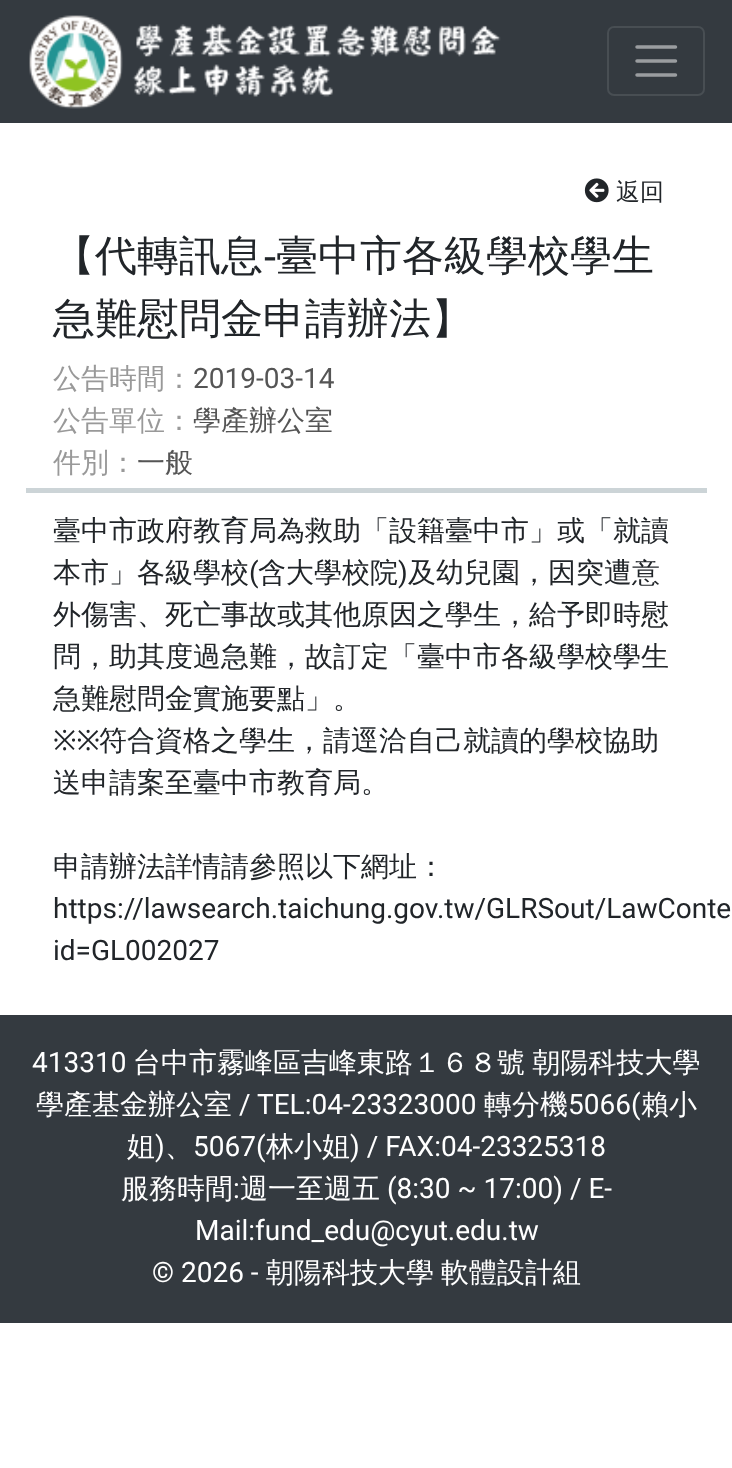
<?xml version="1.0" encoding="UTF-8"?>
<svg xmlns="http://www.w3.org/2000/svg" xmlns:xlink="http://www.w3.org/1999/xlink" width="732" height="1468">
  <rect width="100%" height="100%" fill="#ffffff" />
  <rect width="732" height="123" fill="#343a40" />
  <image x="29" y="15" width="472" height="94" xlink:href="image1.png" />
  <rect x="608" y="27" width="96" height="68" rx="6" fill="none" stroke="#484e53" stroke-width="2" />
  <path d="M 637 47 h 38.5 m -38.5 14 h 38.5 m -38.5 14 h 38.5" fill="none" stroke="#9a9da0" stroke-width="3.5" stroke-linecap="round" />
  <image x="584" y="178" width="25" height="25" xlink:href="image2.png" />
  <rect x="26" y="488" width="681" height="5" fill="#ccd4d7" />
  <rect y="1015" width="732" height="308" fill="#343a40" />
  <text x="616" y="200" style="font-family: WenQuanYi Zen Hei; font-size: 24px; font-weight: 500; fill: #212529">返回</text>
  <text x="53" y="270" style="font-family: WenQuanYi Zen Hei; font-size: 42px; font-weight: 500; fill: #212529">【代轉訊息</text>
  <text x="263" y="270" style="font-family: Liberation Sans; font-size: 42px; fill: #212529">-</text>
  <text x="276" y="270" style="font-family: WenQuanYi Zen Hei; font-size: 42px; font-weight: 500; fill: #212529">臺中市各級學校學生</text>
  <text x="53" y="333" style="font-family: WenQuanYi Zen Hei; font-size: 42px; font-weight: 500; fill: #212529">急難慰問金申請辦法】</text>
  <text x="53" y="388" style="font-family: WenQuanYi Zen Hei; font-size: 28px; font-weight: 500; fill: #999999">公告時間：</text>
  <text x="193" y="388" style="font-family: Roboto; font-size: 28px; fill: #555555">2019-03-14</text>
  <text x="53" y="430" style="font-family: WenQuanYi Zen Hei; font-size: 28px; font-weight: 500; fill: #999999">公告單位：</text>
  <text x="193" y="430" style="font-family: WenQuanYi Zen Hei; font-size: 28px; font-weight: 500; fill: #555555">學產辦公室</text>
  <text x="53" y="472" style="font-family: WenQuanYi Zen Hei; font-size: 28px; font-weight: 500; fill: #999999">件別：</text>
  <text x="137" y="472" style="font-family: WenQuanYi Zen Hei; font-size: 28px; font-weight: 500; fill: #555555">一般</text>
  <text x="53" y="540" style="font-family: WenQuanYi Zen Hei; font-size: 28px; font-weight: 500; fill: #212529">臺中市政府教育局為救助「設籍臺中市」或「就讀</text>
  <text x="53" y="582" style="font-family: WenQuanYi Zen Hei; font-size: 28px; font-weight: 500; fill: #212529">本市」各級學校</text>
  <text x="249" y="582" style="font-family: Roboto; font-size: 28px; fill: #212529">(</text>
  <text x="258" y="582" style="font-family: WenQuanYi Zen Hei; font-size: 28px; font-weight: 500; fill: #212529">含大學校院</text>
  <text x="398" y="582" style="font-family: Roboto; font-size: 28px; fill: #212529">)</text>
  <text x="408" y="582" style="font-family: WenQuanYi Zen Hei; font-size: 28px; font-weight: 500; fill: #212529">及幼兒園，因突遭意</text>
  <text x="53" y="624" style="font-family: WenQuanYi Zen Hei; font-size: 28px; font-weight: 500; fill: #212529">外傷害、死亡事故或其他原因之學生，給予即時慰</text>
  <text x="53" y="666" style="font-family: WenQuanYi Zen Hei; font-size: 28px; font-weight: 500; fill: #212529">問，助其度過急難，故訂定「臺中市各級學校學生</text>
  <text x="53" y="708" style="font-family: WenQuanYi Zen Hei; font-size: 28px; font-weight: 500; fill: #212529">急難慰問金實施要點」。</text>
  <text x="53" y="750" style="font-family: Noto Sans; font-size: 28px; fill: #212529">※※</text>
  <text x="99" y="750" style="font-family: WenQuanYi Zen Hei; font-size: 28px; font-weight: 500; fill: #212529">符合資格之學生，請逕洽自己就讀的學校協助</text>
  <text x="53" y="792" style="font-family: WenQuanYi Zen Hei; font-size: 28px; font-weight: 500; fill: #212529">送申請案至臺中市教育局。</text>
  <text x="53" y="876" style="font-family: WenQuanYi Zen Hei; font-size: 28px; font-weight: 500; fill: #212529">申請辦法詳情請參照以下網址：</text>
  <text x="53" y="918" style="font-family: Roboto; font-size: 28px; fill: #212529">https://lawsearch.taichung.gov.tw/GLRSout/LawConte</text>
  <text x="53" y="960" style="font-family: Roboto; font-size: 28px; fill: #212529">id=GL002027</text>
  <text x="32" y="1072" style="font-family: Roboto; font-size: 28px; fill: #ffffff">413310</text>
  <text x="133" y="1072" word-spacing="-1" style="font-family: WenQuanYi Zen Hei; font-size: 28px; font-weight: 500; fill: #ffffff">台中市霧峰區吉峰東路１６８號 朝陽科技大學</text>
  <text x="36" y="1114" style="font-family: WenQuanYi Zen Hei; font-size: 28px; font-weight: 500; fill: #ffffff">學產基金辦公室</text>
  <text x="239" y="1114" style="font-family: Roboto; font-size: 28px; fill: #ffffff">/ TEL:04-23323000</text>
  <text x="484" y="1114" style="font-family: WenQuanYi Zen Hei; font-size: 28px; font-weight: 500; fill: #ffffff">轉分機</text>
  <text x="568" y="1114" style="font-family: Roboto; font-size: 28px; fill: #ffffff">5066(</text>
  <text x="641" y="1114" style="font-family: WenQuanYi Zen Hei; font-size: 28px; font-weight: 500; fill: #ffffff">賴小</text>
  <text x="127" y="1156" style="font-family: WenQuanYi Zen Hei; font-size: 28px; font-weight: 500; fill: #ffffff">姐</text>
  <text x="155" y="1156" style="font-family: Roboto; font-size: 28px; fill: #ffffff">)</text>
  <text x="165" y="1156" style="font-family: WenQuanYi Zen Hei; font-size: 28px; font-weight: 500; fill: #ffffff">、</text>
  <text x="193" y="1156" style="font-family: Roboto; font-size: 28px; fill: #ffffff">5067(</text>
  <text x="266" y="1156" style="font-family: WenQuanYi Zen Hei; font-size: 28px; font-weight: 500; fill: #ffffff">林小姐</text>
  <text x="350" y="1156" style="font-family: Roboto; font-size: 28px; fill: #ffffff">) / FAX:04-23325318</text>
  <text x="121" y="1198" style="font-family: WenQuanYi Zen Hei; font-size: 28px; font-weight: 500; fill: #ffffff">服務時間</text>
  <text x="233" y="1198" style="font-family: Roboto; font-size: 28px; fill: #ffffff">:</text>
  <text x="240" y="1198" style="font-family: WenQuanYi Zen Hei; font-size: 28px; font-weight: 500; fill: #ffffff">週一至週五</text>
  <text x="387" y="1198" style="font-family: Roboto; font-size: 28px; fill: #ffffff">(8:30 ~ 17:00) / E-</text>
  <text x="195" y="1240" style="font-family: Roboto; font-size: 28px; fill: #ffffff">Mail:fund_edu@cyut.edu.tw</text>
  <text x="152" y="1282" style="font-family: Roboto; font-size: 28px; fill: #ffffff">© 2026 -</text>
  <text x="266" y="1282" style="font-family: WenQuanYi Zen Hei; font-size: 28px; font-weight: 500; fill: #ffffff">朝陽科技大學</text>
  <text x="441" y="1282" style="font-family: WenQuanYi Zen Hei; font-size: 28px; font-weight: 500; fill: #ffffff">軟體設計組</text>
</svg>
